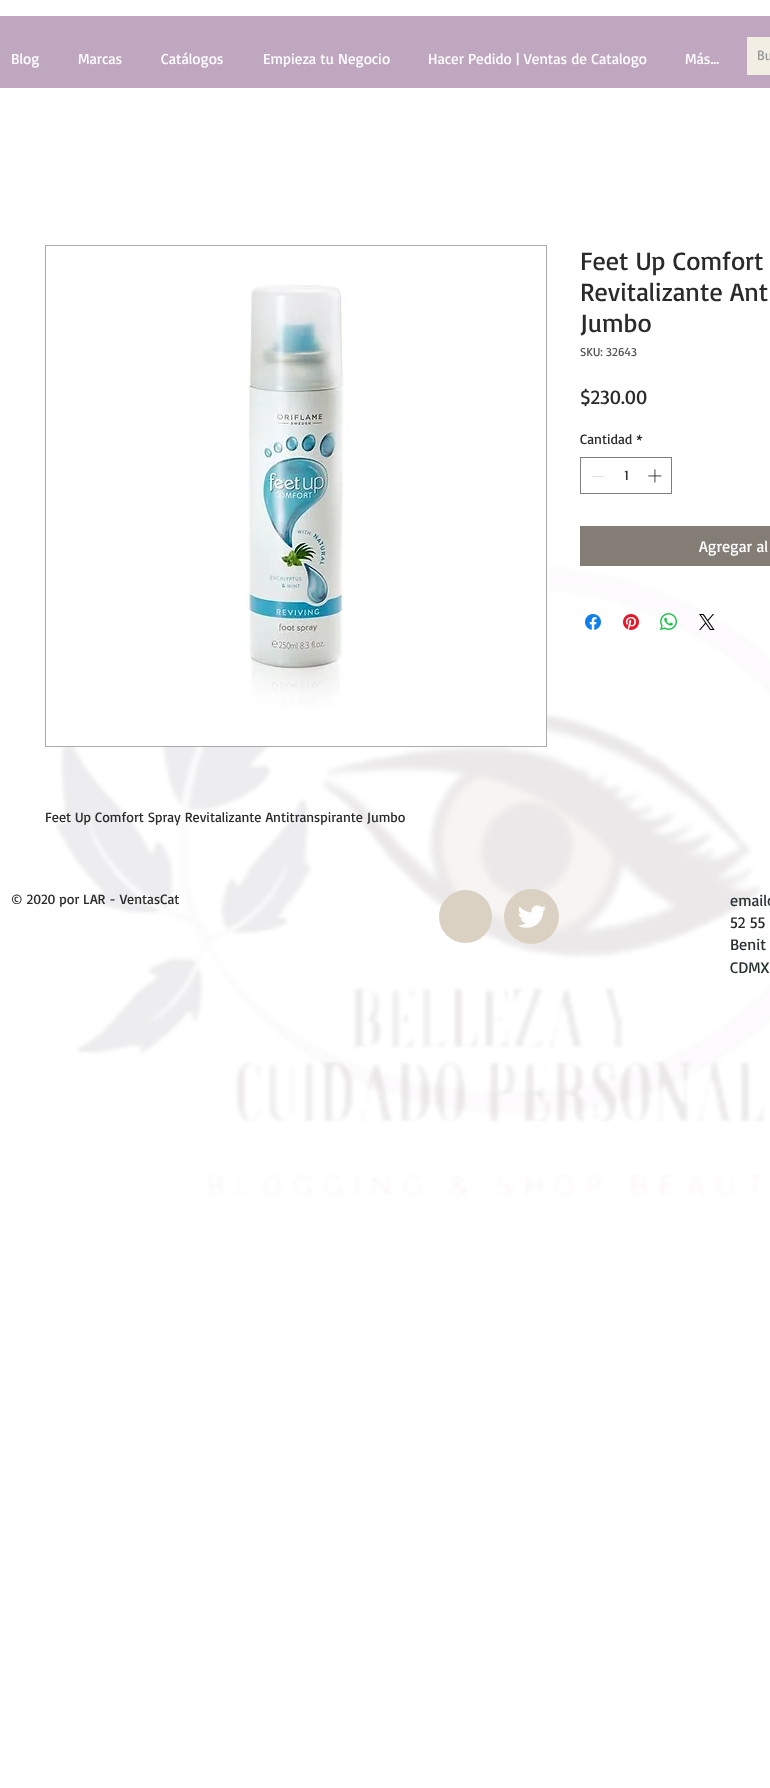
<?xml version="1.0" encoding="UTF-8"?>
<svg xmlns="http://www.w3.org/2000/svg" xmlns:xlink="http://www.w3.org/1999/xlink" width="770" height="1788">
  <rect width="100%" height="100%" fill="#ffffff" />
  <rect y="16" width="770" height="72" fill="#bfa8bf" />
  <rect x="747" y="37" width="23" height="38" fill="#f2eee4" />
  <rect x="580.5" y="457.5" width="91" height="36" fill="none" stroke="#7f7f7f" />
  <rect x="592" y="476" width="13" height="1" fill="#e3e3e3" />
  <image x="648" y="469" width="14" height="14" xlink:href="image1.png" />
  <rect x="580" y="526" width="190" height="40" fill="#837d75" />
  <image x="55" y="567" width="715" height="628" xlink:href="image8.png" />
  <image x="585" y="614" width="16" height="16" xlink:href="image2.png" />
  <image x="623" y="614" width="16" height="16" xlink:href="image3.png" />
  <image x="660" y="613" width="17" height="17" xlink:href="image4.png" />
  <image x="699" y="614" width="16" height="16" xlink:href="image5.png" />
  <rect x="45.5" y="245.5" width="501" height="501" fill="none" stroke="#aaaaaa" />
  <image x="62" y="284" width="484" height="462" xlink:href="image6.png" />
  <circle cx="465.5" cy="916.5" r="26.5" fill="#dbd1c3" />
  <circle cx="531.5" cy="916.5" r="27.5" fill="#dbd1c3" />
  <image x="518" y="905" width="28" height="23" xlink:href="image7.png" />
  <text x="11" y="64" style="font-family: Basic; font-size: 15px; fill: #ffffff">Blog</text>
  <text x="78" y="64" style="font-family: Basic; font-size: 15px; fill: #ffffff">Marcas</text>
  <text x="161" y="64" style="font-family: Basic; font-size: 15px; fill: #ffffff">Catálogos</text>
  <text x="263" y="64" style="font-family: Basic; font-size: 15px; fill: #ffffff">Empieza tu Negocio</text>
  <text x="428" y="64" style="font-family: Basic; font-size: 15px; fill: #ffffff">Hacer Pedido | Ventas de Catalogo</text>
  <text x="685" y="64" style="font-family: Basic; font-size: 15px; fill: #ffffff">Más...</text>
  <text x="757" y="60" style="font-family: Overlock; font-size: 14px; font-weight: bold; fill: #999999">Bu</text>
  <text x="580" y="270" style="font-family: Basic; font-size: 26px; fill: #2a2a2a">Feet Up Comfort</text>
  <text x="580" y="301" style="font-family: Basic; font-size: 26px; fill: #2a2a2a">Revitalizante Ant</text>
  <text x="580" y="332" style="font-family: Basic; font-size: 26px; fill: #2a2a2a">Jumbo</text>
  <text x="580" y="356" style="font-family: Basic; font-size: 12px; fill: #555555">SKU: 32643</text>
  <text x="580" y="404" style="font-family: Basic; font-size: 20px; fill: #2a2a2a">$230.00</text>
  <text x="580" y="444" style="font-family: Basic; font-size: 14px; fill: #2a2a2a">Cantidad *</text>
  <text x="624" y="480" style="font-family: Basic; font-size: 14px; fill: #2a2a2a">1</text>
  <text x="699" y="552" style="font-family: Basic; font-size: 16px; fill: #ffffff">Agregar al</text>
  <text x="45" y="822" style="font-family: Basic; font-size: 14px; fill: #2a2a2a">Feet Up Comfort Spray Revitalizante Antitranspirante Jumbo</text>
  <text x="11" y="904" style="font-family: Basic; font-size: 14px; fill: #2a2a2a">© 2020 por LAR - VentasCat</text>
  <text x="730" y="906" style="font-family: Basic; font-size: 16px; fill: #2a3233">emailc</text>
  <text x="730" y="928" style="font-family: Basic; font-size: 16px; fill: #2a2a2a">52 55</text>
  <text x="730" y="950" style="font-family: Basic; font-size: 16px; fill: #2a3233">Benit</text>
  <text x="730" y="973" style="font-family: Basic; font-size: 16px; fill: #2a3233">CDMX</text>
</svg>
